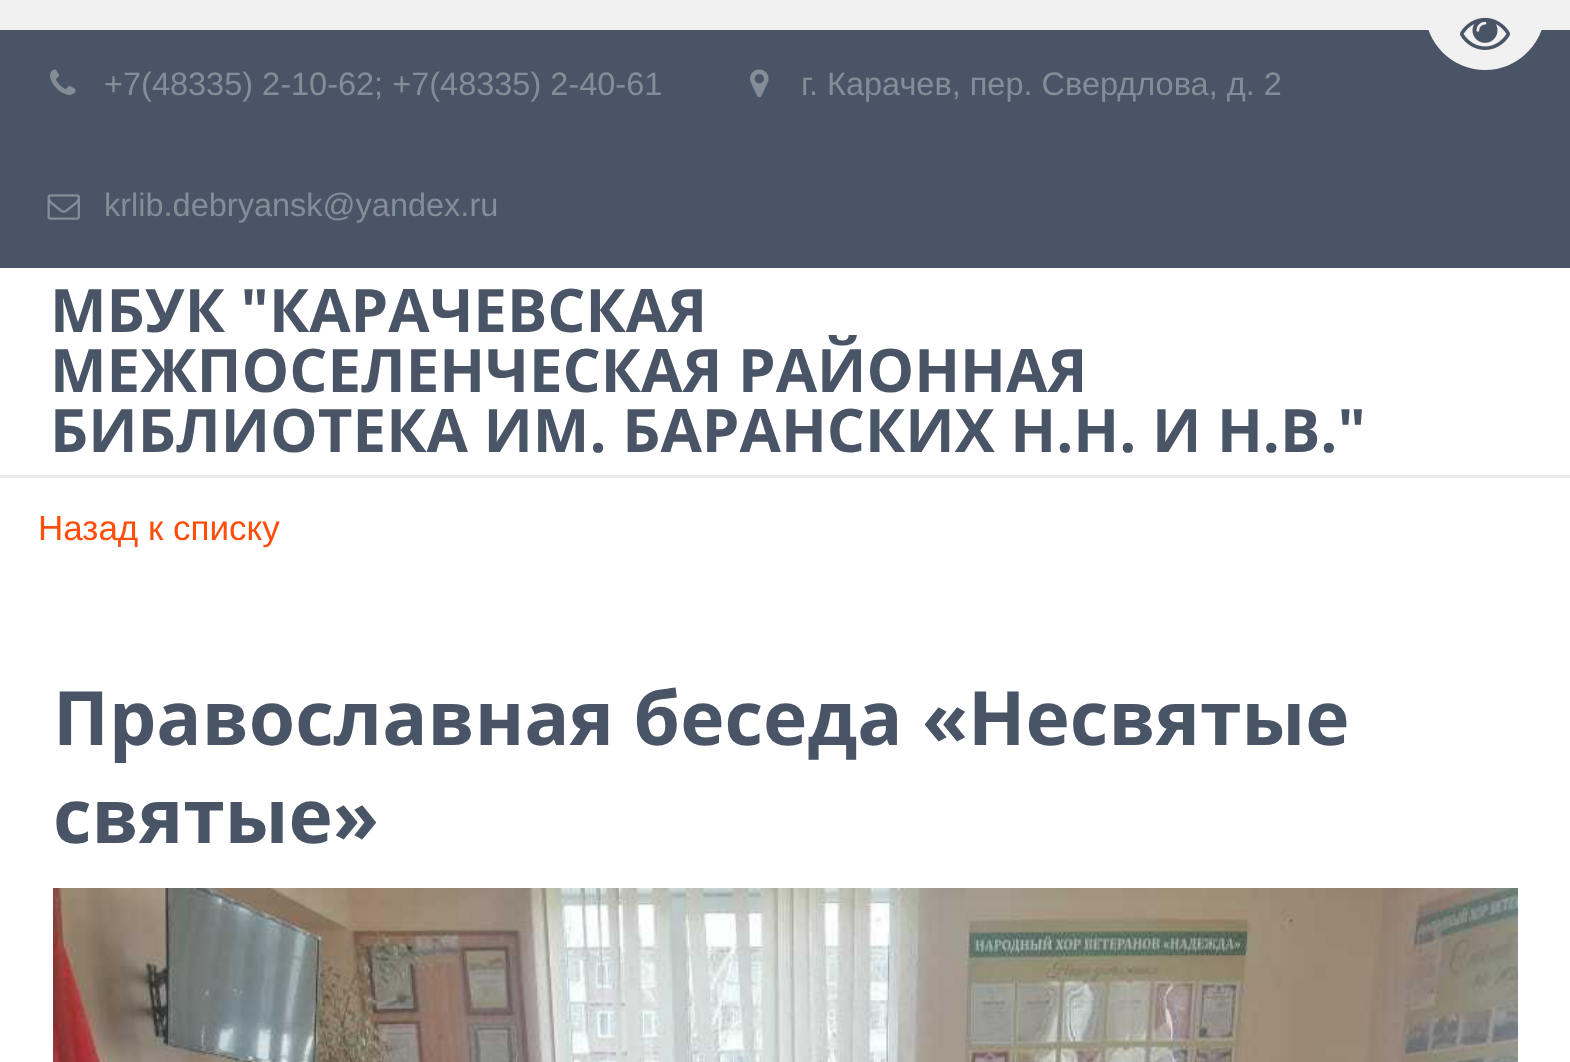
<?xml version="1.0" encoding="UTF-8"?>
<svg xmlns="http://www.w3.org/2000/svg" xmlns:xlink="http://www.w3.org/1999/xlink" width="1570" height="1062">
  <rect width="100%" height="100%" fill="#ffffff" />
  <rect width="1570" height="30" fill="#f1f1f1" />
  <rect y="30" width="1570" height="238" fill="#495566" />
  <path d="M 1425 -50 h 120 v 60 c 0 33 -27 60 -60 60 c -33 0 -60 -27 -60 -60 z" fill="#f1f1f1" />
  <image x="1460" y="17" width="50" height="33" xlink:href="image1.png" />
  <rect y="475" width="1570" height="3" fill="#ebebeb" />
  <image x="50" y="69" width="26" height="26" xlink:href="image2.png" />
  <image x="750" y="69" width="19" height="29" xlink:href="image3.png" />
  <image x="47" y="194" width="33" height="26" xlink:href="image4.png" />
  <image x="53" y="888" width="1465" height="174" xlink:href="image5.png" />
  <text x="104" y="95" style="font-family: Liberation Sans; font-size: 32.5px; fill: #848c97">+7(48335) 2-10-62; +7(48335) 2-40-61</text>
  <text x="801" y="95" style="font-family: Liberation Sans; font-size: 32.5px; fill: #848c97">г. Карачев, пер. Свердлова, д. 2</text>
  <text x="104" y="216" style="font-family: Liberation Sans; font-size: 32.5px; fill: #848c97">krlib.debryansk@yandex.ru</text>
  <text x="50" y="332" style="font-family: Open Sans; font-size: 60px; font-weight: bold; fill: #495566">МБУК "КАРАЧЕВСКАЯ</text>
  <text x="50" y="392" style="font-family: Open Sans; font-size: 60px; font-weight: bold; fill: #495566">МЕЖПОСЕЛЕНЧЕСКАЯ РАЙОННАЯ</text>
  <text x="50" y="452" style="font-family: Open Sans; font-size: 60px; font-weight: bold; fill: #495566">БИБЛИОТЕКА ИМ. БАРАНСКИХ Н.Н. И Н.В."</text>
  <text x="38" y="540" style="font-family: Liberation Sans; font-size: 35px; fill: #ff4e0c">Назад к списку</text>
  <text x="53" y="745" style="font-family: Open Sans; font-size: 75px; font-weight: bold; fill: #495566">Православная беседа «Несвятые</text>
  <text x="53" y="843" style="font-family: Open Sans; font-size: 75px; font-weight: bold; fill: #495566">святые»</text>
</svg>
